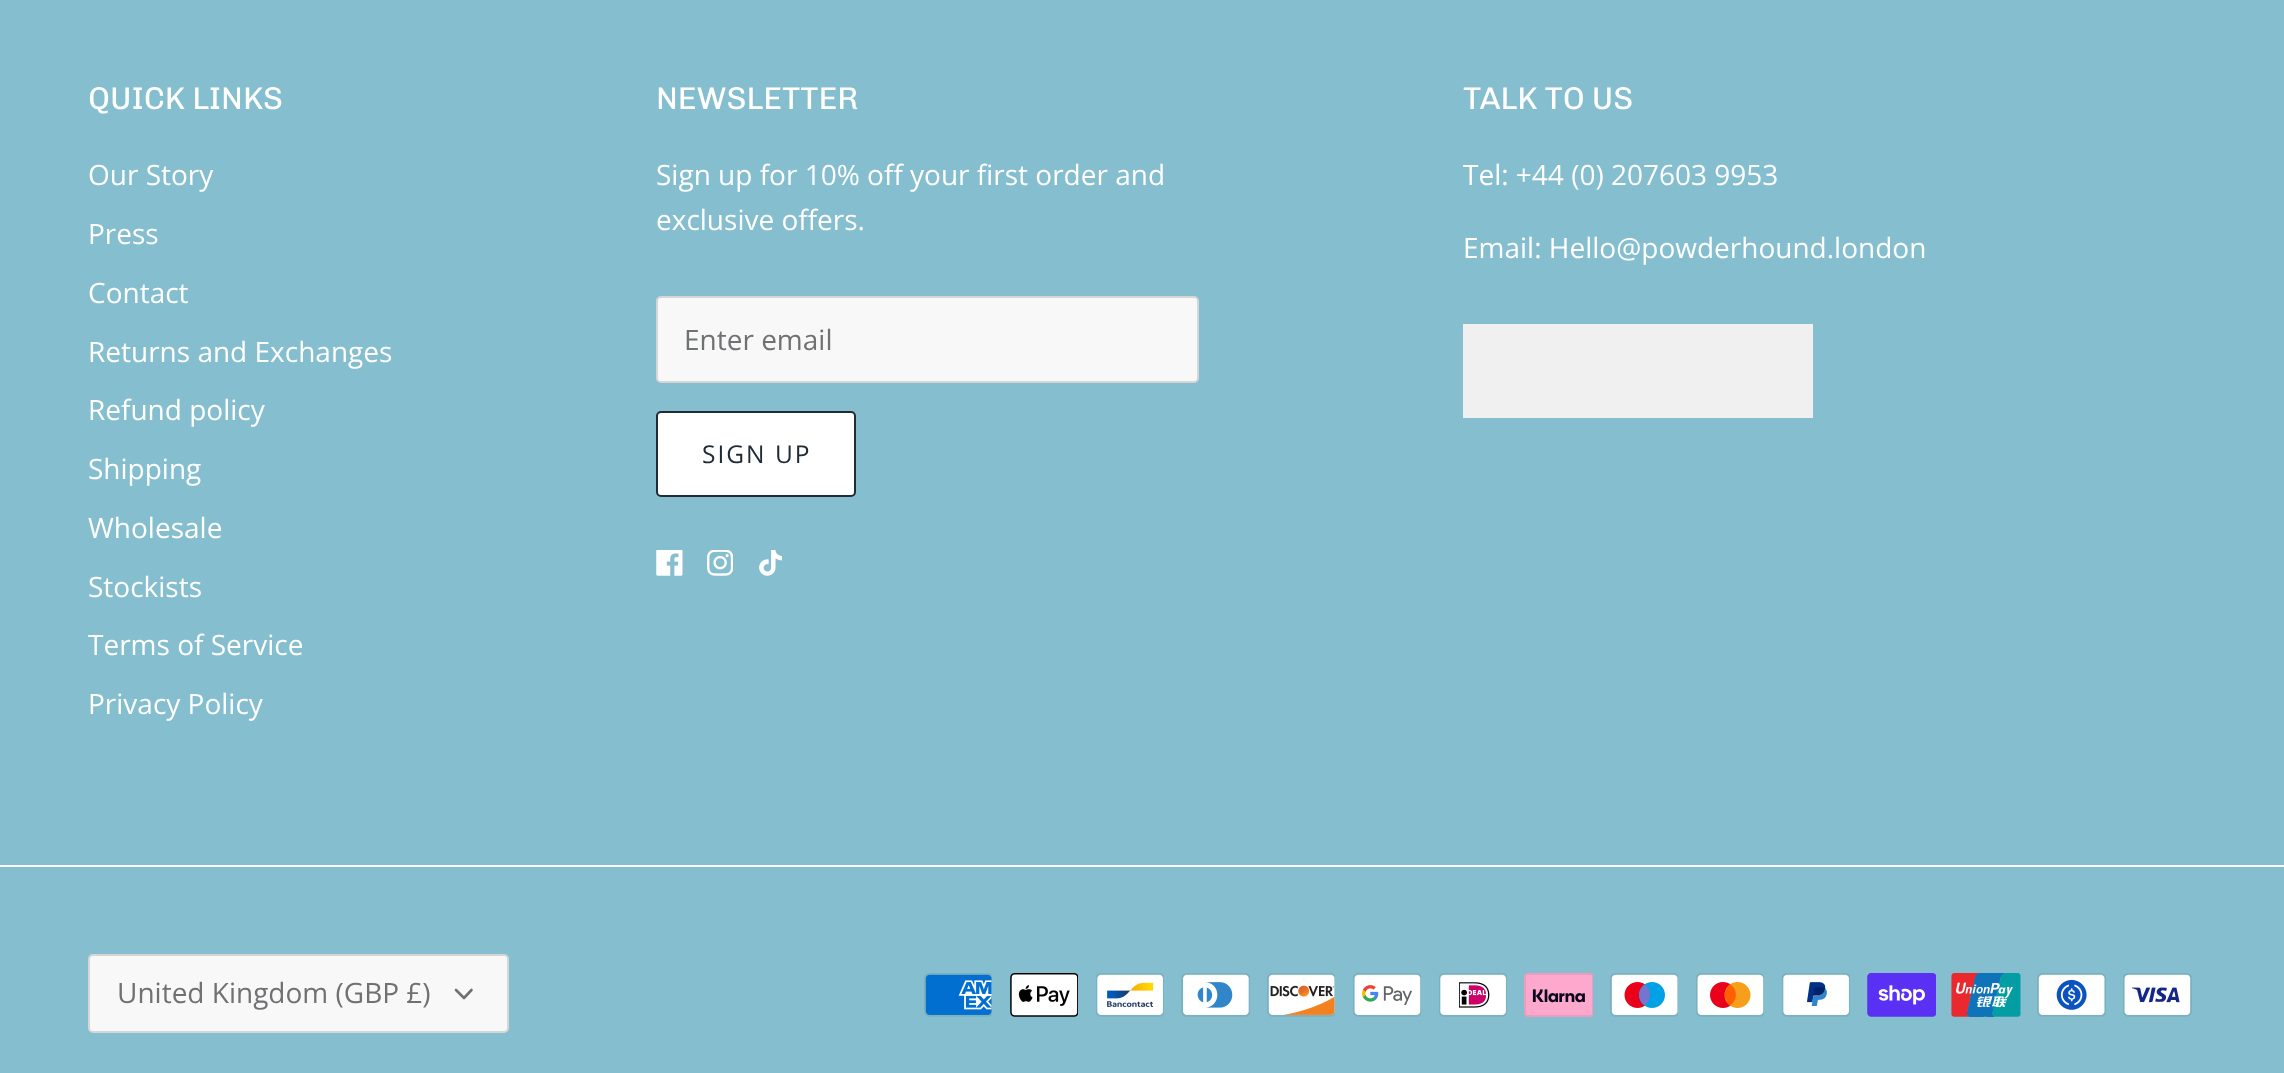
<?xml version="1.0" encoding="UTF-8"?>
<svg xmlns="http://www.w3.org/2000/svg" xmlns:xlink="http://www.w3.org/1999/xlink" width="2284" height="1073">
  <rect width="100%" height="100%" fill="#84becf" />
  <rect x="657" y="297" width="541" height="85" rx="4" fill="#f8f8f8" stroke="#d6d6d7" stroke-width="2" />
  <rect x="657" y="412" width="198" height="84" rx="4" fill="#ffffff" stroke="#212b36" stroke-width="2" />
  <image x="656" y="550" width="27" height="26" xlink:href="image1.png" />
  <image x="707" y="550" width="26" height="26" xlink:href="image2.png" />
  <image x="759" y="550" width="23" height="26" xlink:href="image3.png" />
  <rect x="1463" y="324" width="350" height="94" fill="#f0f0f0" />
  <rect y="865" width="2284" height="2" fill="#ffffff" />
  <rect x="89" y="955" width="419" height="77" rx="4" fill="#f8f8f8" stroke="#d6d6d7" stroke-width="2" />
  <path d="M 456 990 l 8 8 l 7.5 -8" fill="none" stroke="#707173" stroke-width="2.6" stroke-linecap="round" stroke-linejoin="round" />
  <image x="924" y="973" width="68" height="44" xlink:href="image4.png" />
  <image x="1010" y="973" width="68" height="44" xlink:href="image5.png" />
  <image x="1096" y="973" width="68" height="44" xlink:href="image6.png" />
  <image x="1181" y="973" width="69" height="44" xlink:href="image7.png" />
  <image x="1267" y="973" width="68" height="44" xlink:href="image8.png" />
  <image x="1353" y="973" width="68" height="44" xlink:href="image9.png" />
  <image x="1439" y="973" width="68" height="44" xlink:href="image10.png" />
  <image x="1524" y="973" width="69" height="44" xlink:href="image11.png" />
  <image x="1610" y="973" width="68" height="44" xlink:href="image12.png" />
  <image x="1696" y="973" width="68" height="44" xlink:href="image13.png" />
  <image x="1782" y="973" width="68" height="44" xlink:href="image14.png" />
  <image x="1867" y="973" width="69" height="44" xlink:href="image15.png" />
  <image x="1951" y="973" width="70" height="44" xlink:href="image16.png" />
  <image x="2037" y="973" width="69" height="44" xlink:href="image17.png" />
  <image x="2123" y="973" width="69" height="44" xlink:href="image18.png" />
  <text x="88" y="109" style="font-family: Chivo; font-size: 31.5px; fill: #ffffff">QUICK LINKS</text>
  <text x="88" y="185" style="font-family: Open Sans; font-size: 28px; fill: #ffffff">Our Story</text>
  <text x="88" y="244" style="font-family: Open Sans; font-size: 28px; fill: #ffffff">Press</text>
  <text x="88" y="303" style="font-family: Open Sans; font-size: 28px; fill: #ffffff">Contact</text>
  <text x="88" y="362" style="font-family: Open Sans; font-size: 28px; fill: #ffffff">Returns and Exchanges</text>
  <text x="88" y="420" style="font-family: Open Sans; font-size: 28px; fill: #ffffff">Refund policy</text>
  <text x="88" y="479" style="font-family: Open Sans; font-size: 28px; fill: #ffffff">Shipping</text>
  <text x="88" y="538" style="font-family: Open Sans; font-size: 28px; fill: #ffffff">Wholesale</text>
  <text x="88" y="597" style="font-family: Open Sans; font-size: 28px; fill: #ffffff">Stockists</text>
  <text x="88" y="655" style="font-family: Open Sans; font-size: 28px; fill: #ffffff">Terms of Service</text>
  <text x="88" y="714" style="font-family: Open Sans; font-size: 28px; fill: #ffffff">Privacy Policy</text>
  <text x="656" y="109" style="font-family: Chivo; font-size: 31.5px; fill: #ffffff">NEWSLETTER</text>
  <text x="656" y="185" style="font-family: Open Sans; font-size: 28px; fill: #ffffff">Sign up for 10% off your first order and</text>
  <text x="656" y="230" style="font-family: Open Sans; font-size: 28px; fill: #ffffff">exclusive offers.</text>
  <text x="684" y="350" style="font-family: Open Sans; font-size: 28px; fill: #707173">Enter email</text>
  <text x="702" y="463" style="font-family: Open Sans; font-size: 24.5px; letter-spacing: 2px; fill: #212b36">SIGN UP</text>
  <text x="1463" y="109" style="font-family: Chivo; font-size: 31.5px; fill: #ffffff">TALK TO US</text>
  <text x="1463" y="185" style="font-family: Open Sans; font-size: 28px; fill: #ffffff">Tel: +44 (0) 207603 9953</text>
  <text x="1463" y="258" style="font-family: Open Sans; font-size: 28px; fill: #ffffff">Email: Hello@powderhound.london</text>
  <text x="117" y="1003" style="font-family: Open Sans; font-size: 28px; fill: #707173">United Kingdom (GBP £)</text>
</svg>
